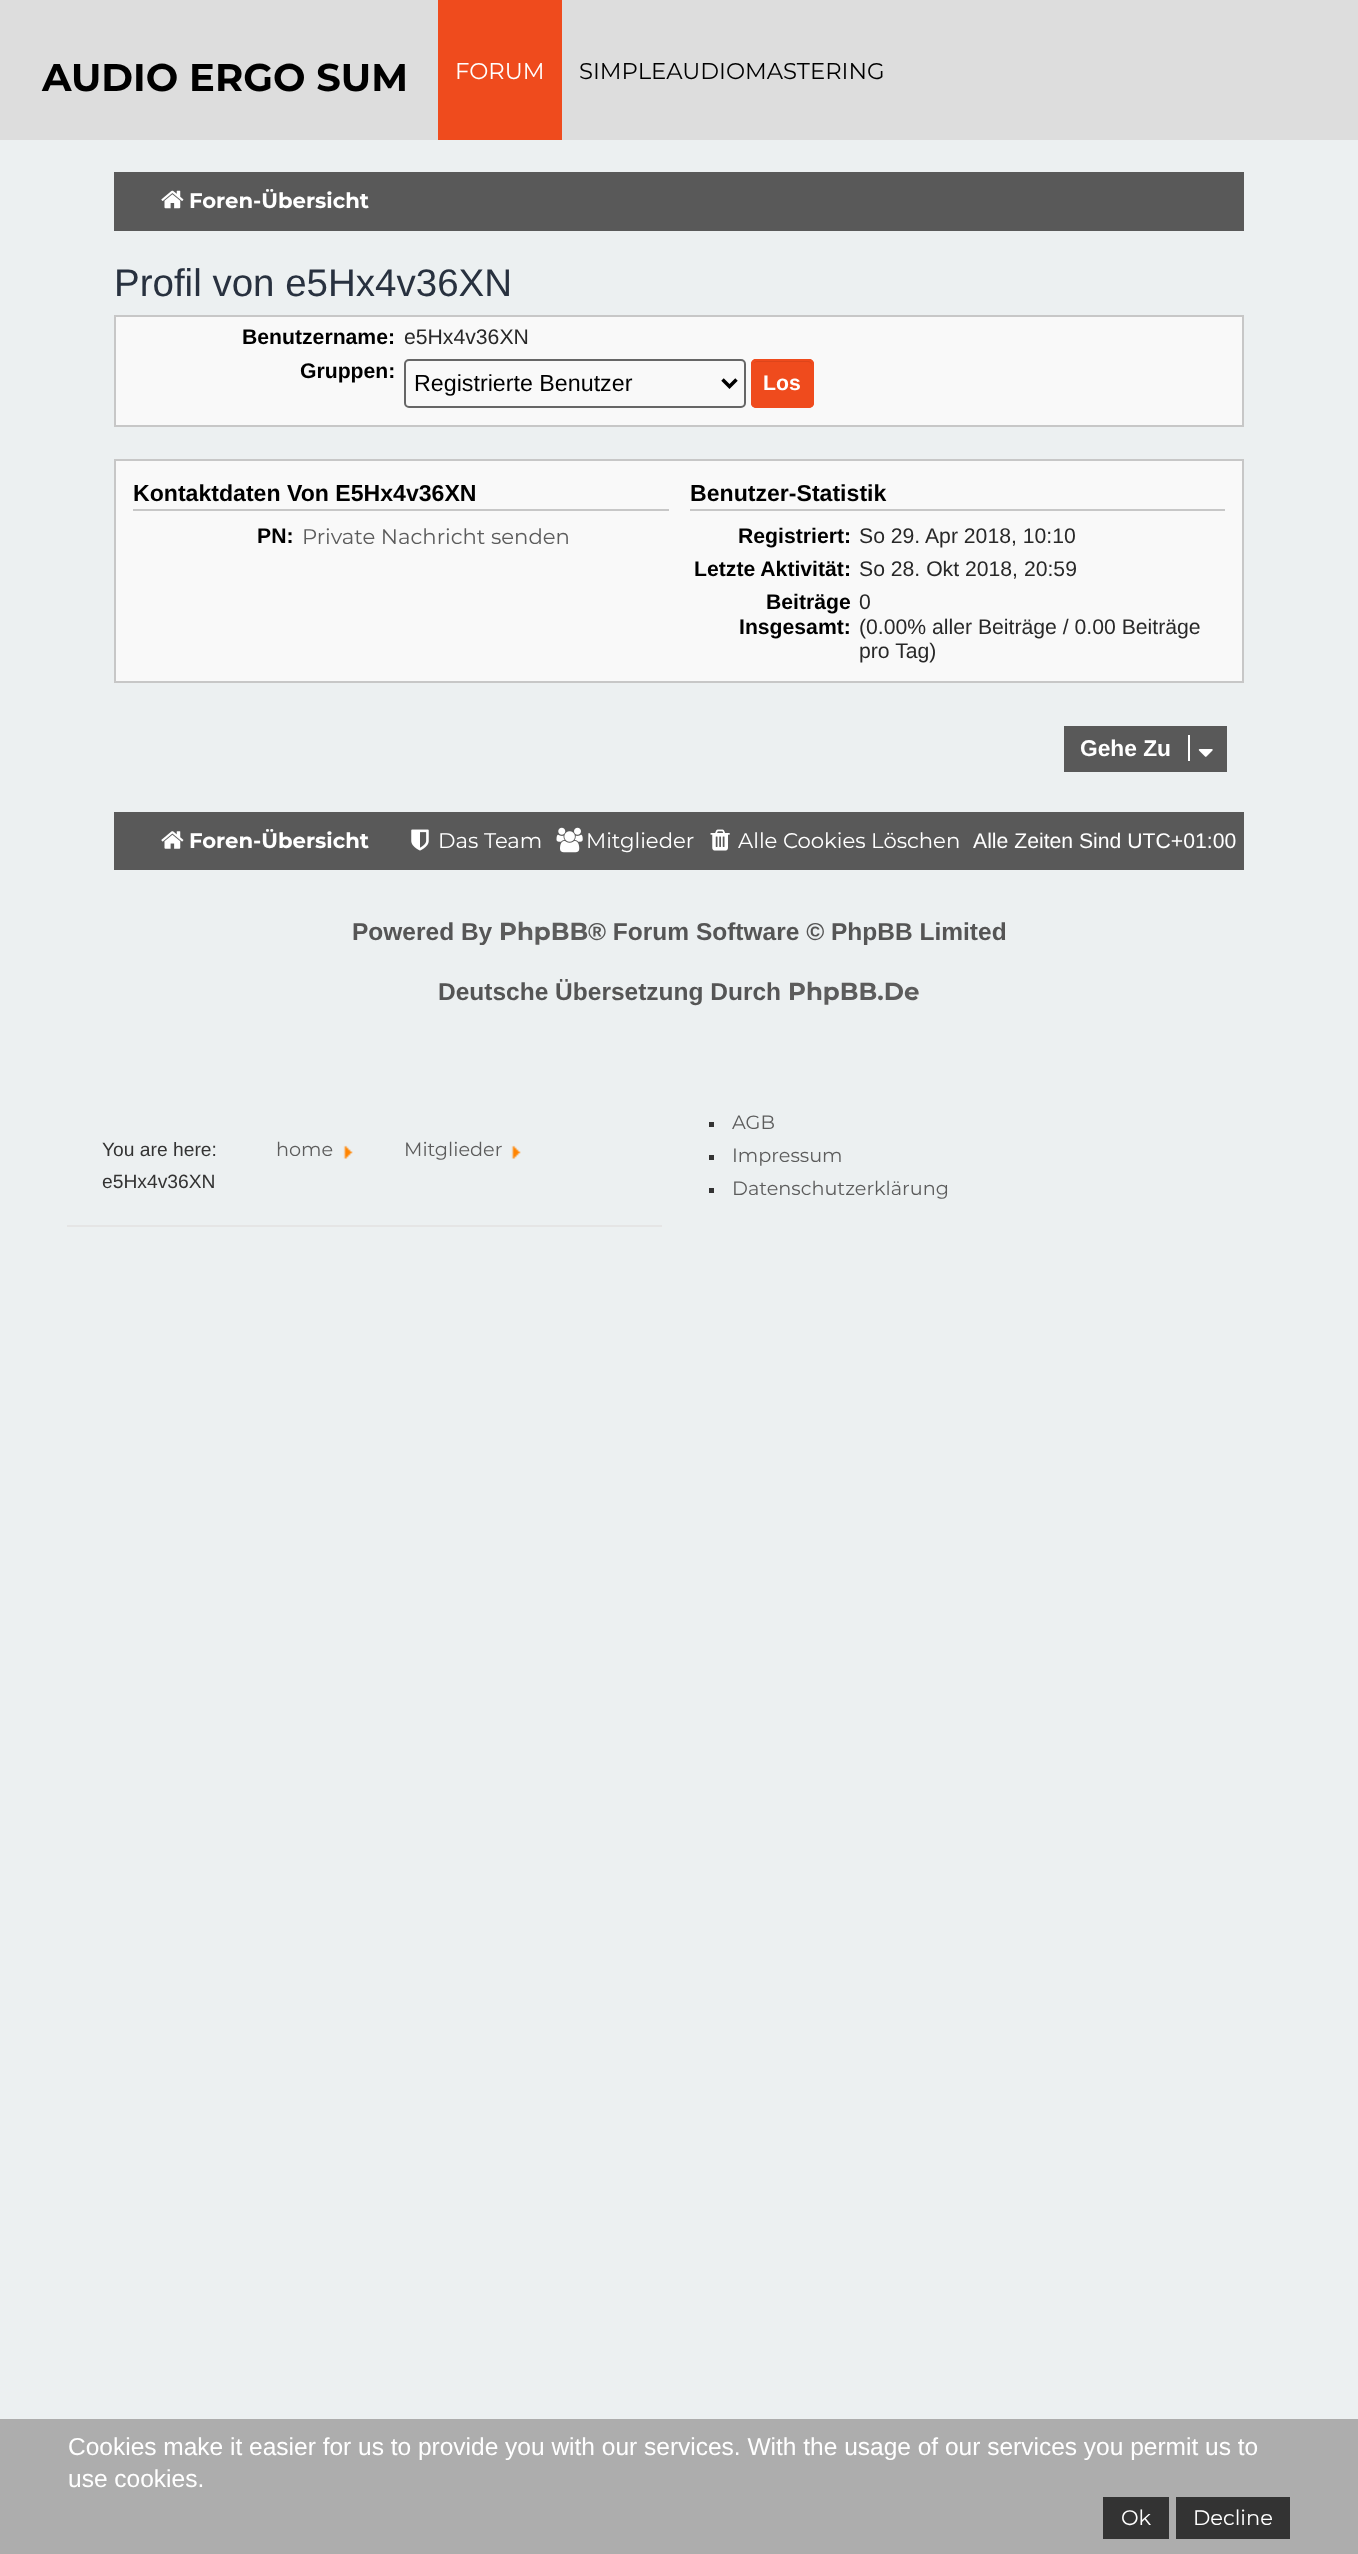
<?xml version="1.0" encoding="UTF-8"?>
<svg xmlns="http://www.w3.org/2000/svg" xmlns:xlink="http://www.w3.org/1999/xlink" width="1358" height="2554">
  <rect width="100%" height="100%" fill="#ecf0f1" />
  <rect width="1358" height="140" fill="#dddddd" />
  <rect x="438" width="124" height="140" fill="#ef4b1d" />
  <rect x="114" y="172" width="1130" height="59" fill="#595959" />
  <image x="161" y="190" width="23" height="19" xlink:href="image1.png" />
  <rect x="115" y="316" width="1128" height="110" fill="#f9f9f9" stroke="#c7c7c7" stroke-width="2" />
  <rect x="405" y="360" width="340" height="47" rx="4" fill="none" stroke="#666666" stroke-width="2" />
  <path d="M 722.5 379.5 l 7 7 l 7 -7" fill="none" stroke="#000000" stroke-width="3.5" />
  <rect x="751" y="359" width="63" height="49" rx="5" fill="#ef4b1d" />
  <path d="M 756 362 h 52 c 2 0 4 2 4 4 v -1 c 0 -2 -2 -4 -4 -4 h -51 c -1 0 -3 1 -3 2 z" fill="#dd451b" />
  <rect x="752" y="360" width="61" height="47" rx="4" fill="none" stroke="#ef4b1d" stroke-width="2" />
  <rect x="115" y="460" width="1128" height="222" fill="#f9f9f9" stroke="#c7c7c7" stroke-width="2" />
  <rect x="133" y="509" width="536" height="2" fill="#c7c7c7" />
  <rect x="690" y="509" width="535" height="2" fill="#c7c7c7" />
  <rect x="1064" y="726" width="163" height="46" fill="#595959" />
  <rect x="1188" y="735" width="2" height="26" fill="#ffffff" />
  <image x="1198" y="749" width="15" height="8" xlink:href="image2.png" />
  <rect x="114" y="812" width="1130" height="58" fill="#595959" />
  <image x="161" y="831" width="23" height="18" xlink:href="image3.png" />
  <image x="411" y="829" width="18" height="22" xlink:href="image4.png" />
  <image x="556" y="827" width="27" height="26" xlink:href="image5.png" />
  <image x="710" y="829" width="20" height="22" xlink:href="image6.png" />
  <rect x="67" y="1225" width="595" height="2" fill="#e5e5e5" />
  <image x="343" y="1145" width="10" height="14" xlink:href="image7.png" />
  <image x="511" y="1145" width="10" height="14" xlink:href="image8.png" />
  <rect x="709" y="1122" width="5" height="5" fill="#333333" />
  <rect x="709" y="1155" width="5" height="5" fill="#333333" />
  <rect x="709" y="1188" width="5" height="5" fill="#333333" />
  <rect y="2419" width="1358" height="135" fill="#adadad" />
  <rect x="1103" y="2497" width="66" height="42" fill="#333333" />
  <rect x="1176" y="2497" width="114" height="42" fill="#333333" />
  <text x="42" y="91" style="font-family: Montserrat; font-size: 38.5px; font-weight: bold; fill: #000000">AUDIO ERGO SUM</text>
  <text x="455" y="79" style="font-family: Montserrat; font-size: 22.75px; fill: #ffffff">FORUM</text>
  <text x="579" y="79" style="font-family: Montserrat; font-size: 22.75px; fill: #000000">SIMPLEAUDIOMASTERING</text>
  <text x="189" y="208" style="font-family: Montserrat; font-size: 21.2px; font-weight: bold; fill: #ffffff">Foren-Übersicht</text>
  <text x="114" y="296" style="font-family: Liberation Sans; font-size: 38.5px; fill: #28313f">Profil von e5Hx4v36XN</text>
  <text x="242" y="344" style="font-family: Liberation Sans; font-size: 21.2px; font-weight: bold; fill: #000000">Benutzername:</text>
  <text x="404" y="344" style="font-family: Liberation Sans; font-size: 21.2px; fill: #282828">e5Hx4v36XN</text>
  <text x="300" y="378" style="font-family: Liberation Sans; font-size: 21.2px; font-weight: bold; fill: #000000">Gruppen:</text>
  <text x="414" y="391" style="font-family: Liberation Sans; font-size: 23.25px; fill: #000000">Registrierte Benutzer</text>
  <text x="763" y="390" style="font-family: Liberation Sans; font-size: 21.2px; font-weight: bold; fill: #ffffff">Los</text>
  <text x="133" y="501" style="font-family: Liberation Sans; font-size: 23.1px; font-weight: bold; fill: #000000">Kontaktdaten Von E5Hx4v36XN</text>
  <text x="257" y="543" style="font-family: Liberation Sans; font-size: 21.2px; font-weight: bold; fill: #000000">PN:</text>
  <text x="302" y="544" style="font-family: Montserrat; font-size: 21.2px; fill: #5c5c5c">Private Nachricht senden</text>
  <text x="690" y="501" style="font-family: Liberation Sans; font-size: 23.1px; font-weight: bold; fill: #000000">Benutzer-Statistik</text>
  <text x="738" y="543" style="font-family: Liberation Sans; font-size: 21.2px; font-weight: bold; fill: #000000">Registriert:</text>
  <text x="859" y="543" style="font-family: Liberation Sans; font-size: 21.2px; fill: #282828">So 29. Apr 2018, 10:10</text>
  <text x="694" y="576" style="font-family: Liberation Sans; font-size: 21.2px; font-weight: bold; fill: #000000">Letzte Aktivität:</text>
  <text x="859" y="576" style="font-family: Liberation Sans; font-size: 21.2px; fill: #282828">So 28. Okt 2018, 20:59</text>
  <text x="766" y="609" style="font-family: Liberation Sans; font-size: 21.2px; font-weight: bold; fill: #000000">Beiträge</text>
  <text x="739" y="634" style="font-family: Liberation Sans; font-size: 21.2px; font-weight: bold; fill: #000000">Insgesamt:</text>
  <text x="859" y="609" style="font-family: Liberation Sans; font-size: 21.2px; fill: #282828">0</text>
  <text x="859" y="634" style="font-family: Liberation Sans; font-size: 21.2px; fill: #282828">(0.00% aller Beiträge / 0.00 Beiträge</text>
  <text x="859" y="658" style="font-family: Liberation Sans; font-size: 21.2px; fill: #282828">pro Tag)</text>
  <text x="1080" y="756" style="font-family: Liberation Sans; font-size: 22.75px; font-weight: bold; fill: #ffffff">Gehe Zu</text>
  <text x="189" y="848" style="font-family: Montserrat; font-size: 21.2px; font-weight: bold; fill: #ffffff">Foren-Übersicht</text>
  <text x="438" y="848" style="font-family: Montserrat; font-size: 21.2px; fill: #ffffff">Das Team</text>
  <text x="586" y="848" style="font-family: Montserrat; font-size: 21.2px; fill: #ffffff">Mitglieder</text>
  <text x="738" y="848" style="font-family: Montserrat; font-size: 21.2px; fill: #ffffff">Alle Cookies Löschen</text>
  <text x="973" y="848" style="font-family: Liberation Sans; font-size: 21.2px; fill: #ffffff">Alle Zeiten Sind UTC+01:00</text>
  <text x="352" y="940" style="font-family: Liberation Sans; font-size: 24.5px; font-weight: bold; fill: #555555">Powered By</text>
  <text x="499" y="940" style="font-family: Montserrat; font-size: 24.5px; font-weight: bold; fill: #5c5c5c">PhpBB</text>
  <text x="588" y="940" style="font-family: Liberation Sans; font-size: 24.5px; font-weight: bold; fill: #555555">® Forum Software © PhpBB Limited</text>
  <text x="438" y="1000" style="font-family: Liberation Sans; font-size: 24.5px; font-weight: bold; fill: #555555">Deutsche Übersetzung Durch</text>
  <text x="788" y="1000" style="font-family: Montserrat; font-size: 24.5px; font-weight: bold; fill: #5c5c5c">PhpBB.De</text>
  <text x="102" y="1156" style="font-family: Liberation Sans; font-size: 19.25px; fill: #333333">You are here:</text>
  <text x="276" y="1156" style="font-family: Montserrat; font-size: 19.25px; fill: #5c5c5c">home</text>
  <text x="404" y="1156" style="font-family: Montserrat; font-size: 19.25px; fill: #5c5c5c">Mitglieder</text>
  <text x="102" y="1188" style="font-family: Liberation Sans; font-size: 19.25px; fill: #333333">e5Hx4v36XN</text>
  <text x="732" y="1129" style="font-family: Montserrat; font-size: 19.25px; fill: #5c5c5c">AGB</text>
  <text x="732" y="1162" style="font-family: Montserrat; font-size: 19.25px; fill: #5c5c5c">Impressum</text>
  <text x="732" y="1195" style="font-family: Montserrat; font-size: 19.25px; fill: #5c5c5c">Datenschutzerklärung</text>
  <text x="68" y="2455" style="font-family: Liberation Sans; font-size: 24.5px; fill: #ffffff">Cookies make it easier for us to provide you with our services. With the usage of our services you permit us to</text>
  <text x="68" y="2487" style="font-family: Liberation Sans; font-size: 24.5px; fill: #ffffff">use cookies.</text>
  <text x="1121" y="2525" style="font-family: Montserrat; font-size: 21px; fill: #ffffff">Ok</text>
  <text x="1193" y="2525" style="font-family: Montserrat; font-size: 21px; fill: #ffffff">Decline</text>
</svg>
